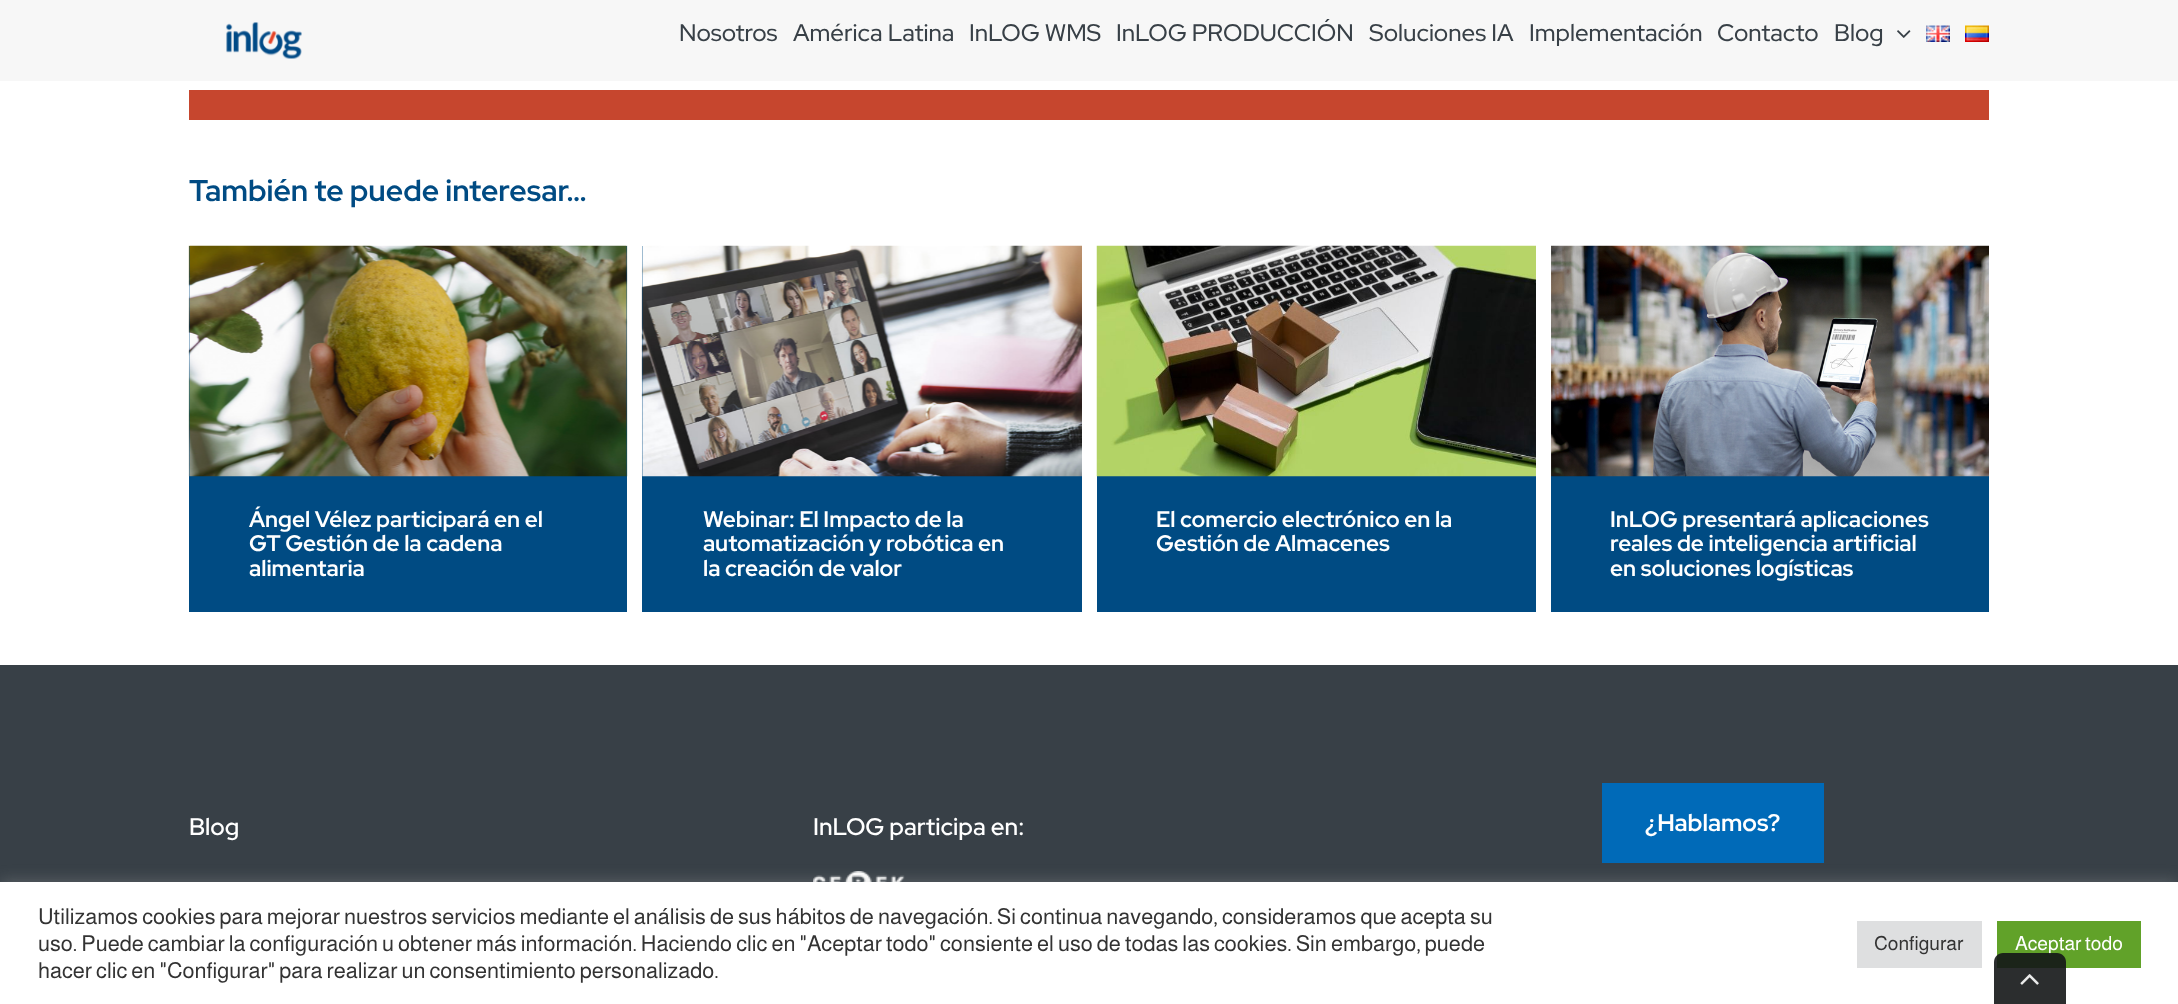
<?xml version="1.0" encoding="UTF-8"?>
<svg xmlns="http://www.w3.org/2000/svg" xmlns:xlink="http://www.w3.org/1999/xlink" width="2178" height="1004">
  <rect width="100%" height="100%" fill="#ffffff" />
  <rect width="2178" height="81" fill="#f7f7f7" />
  <image x="226" y="22" width="76" height="37" xlink:href="image1.png" />
  <image x="1897" y="30" width="14" height="8" xlink:href="image2.png" />
  <image x="1926" y="25" width="24" height="17" xlink:href="image3.png" />
  <image x="1965" y="25" width="24" height="17" xlink:href="image4.png" />
  <rect x="189" y="90" width="1800" height="30" fill="#c6462e" />
  <rect x="189" y="246" width="438" height="366" fill="#004b83" />
  <image x="188" y="245" width="440" height="232" xlink:href="image5.png" />
  <rect x="642" y="246" width="440" height="366" fill="#004b83" />
  <image x="641" y="245" width="441" height="232" xlink:href="image6.png" />
  <rect x="1097" y="476" width="439" height="136" fill="#004b83" />
  <image x="1096" y="245" width="440" height="232" xlink:href="image7.png" />
  <rect x="1551" y="476" width="438" height="136" fill="#004b83" />
  <image x="1551" y="245" width="438" height="232" xlink:href="image8.png" />
  <rect y="665" width="2178" height="217" fill="#384047" />
  <image x="813" y="871" width="92" height="11" xlink:href="image9.png" />
  <rect x="1602" y="783" width="222" height="80" fill="#006ab8" />
  <rect y="881" width="2178" height="123" fill="#acabab" fill-opacity="0.3" filter="blur(7.5px)" />
  <rect y="882" width="2178" height="122" fill="#ffffff" />
  <rect x="1857" y="921" width="125" height="47" fill="#dedfe0" />
  <rect x="1997" y="921" width="144" height="47" fill="#61a229" />
  <text x="679" y="41" style="font-family: Red Hat Display; font-size: 24px; font-weight: 500; fill: #384047">Nosotros</text>
  <text x="793" y="41" style="font-family: Red Hat Display; font-size: 24px; font-weight: 500; fill: #384047">América Latina</text>
  <text x="969" y="41" style="font-family: Red Hat Display; font-size: 24px; font-weight: 500; fill: #384047">InLOG WMS</text>
  <text x="1116" y="41" style="font-family: Red Hat Display; font-size: 24px; font-weight: 500; fill: #384047">InLOG PRODUCCIÓN</text>
  <text x="1369" y="41" style="font-family: Red Hat Display; font-size: 24px; font-weight: 500; fill: #384047">Soluciones IA</text>
  <text x="1529" y="41" style="font-family: Red Hat Display; font-size: 24px; font-weight: 500; fill: #384047">Implementación</text>
  <text x="1717" y="41" style="font-family: Red Hat Display; font-size: 24px; font-weight: 500; fill: #384047">Contacto</text>
  <text x="1834" y="41" style="font-family: Red Hat Display; font-size: 24px; font-weight: 500; fill: #384047">Blog</text>
  <text x="189" y="201" style="font-family: Red Hat Display; font-size: 30px; font-weight: bold; fill: #004b83">También te puede interesar…</text>
  <text x="249" y="527" style="font-family: Red Hat Display; font-size: 22.5px; font-weight: bold; fill: #ffffff">Ángel Vélez participará en el</text>
  <text x="249" y="551" style="font-family: Red Hat Display; font-size: 22.5px; font-weight: bold; fill: #ffffff">GT Gestión de la cadena</text>
  <text x="249" y="576" style="font-family: Red Hat Display; font-size: 22.5px; font-weight: bold; fill: #ffffff">alimentaria</text>
  <text x="703" y="527" style="font-family: Red Hat Display; font-size: 22.5px; font-weight: bold; fill: #ffffff">Webinar: El Impacto de la</text>
  <text x="703" y="551" style="font-family: Red Hat Display; font-size: 22.5px; font-weight: bold; fill: #ffffff">automatización y robótica en</text>
  <text x="703" y="576" style="font-family: Red Hat Display; font-size: 22.5px; font-weight: bold; fill: #ffffff">la creación de valor</text>
  <text x="1156" y="527" style="font-family: Red Hat Display; font-size: 22.5px; font-weight: bold; fill: #ffffff">El comercio electrónico en la</text>
  <text x="1156" y="551" style="font-family: Red Hat Display; font-size: 22.5px; font-weight: bold; fill: #ffffff">Gestión de Almacenes</text>
  <text x="1610" y="527" style="font-family: Red Hat Display; font-size: 22.5px; font-weight: bold; fill: #ffffff">InLOG presentará aplicaciones</text>
  <text x="1610" y="551" style="font-family: Red Hat Display; font-size: 22.5px; font-weight: bold; fill: #ffffff">reales de inteligencia artificial</text>
  <text x="1610" y="576" style="font-family: Red Hat Display; font-size: 22.5px; font-weight: bold; fill: #ffffff">en soluciones logísticas</text>
  <text x="189" y="835" style="font-family: Red Hat Display; font-size: 24px; font-weight: 600; fill: #ffffff">Blog</text>
  <text x="813" y="835" style="font-family: Red Hat Display; font-size: 24px; font-weight: 600; fill: #ffffff">InLOG participa en:</text>
  <text x="1645" y="831" style="font-family: Red Hat Display; font-size: 24px; font-weight: bold; fill: #ffffff">¿Hablamos?</text>
  <text x="38" y="924" style="font-family: Almarai; font-size: 22px; fill: #333333">Utilizamos cookies para mejorar nuestros servicios mediante el análisis de sus hábitos de navegación. Si continua navegando, consideramos que acepta su</text>
  <text x="38" y="951" style="font-family: Almarai; font-size: 22px; fill: #333333">uso. Puede cambiar la configuración u obtener más información. Haciendo clic en "Aceptar todo" consiente el uso de todas las cookies. Sin embargo, puede</text>
  <text x="38" y="978" style="font-family: Almarai; font-size: 22px; fill: #333333">hacer clic en "Configurar" para realizar un consentimiento personalizado.</text>
  <text x="1874" y="950" style="font-family: Almarai; font-size: 19.5px; fill: #333333">Configurar</text>
  <text x="2015" y="950" style="font-family: Almarai; font-size: 19.5px; fill: #ffffff">Aceptar todo</text>
  <path d="M 2003 953 h 54 c 5 0 9 4 9 9 v 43 h -72 v -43 c 0 -5 4 -9 9 -9 z" fill="#141617" fill-opacity="0.9" />
  <image x="2020" y="974" width="19" height="11" xlink:href="image10.png" />
</svg>
